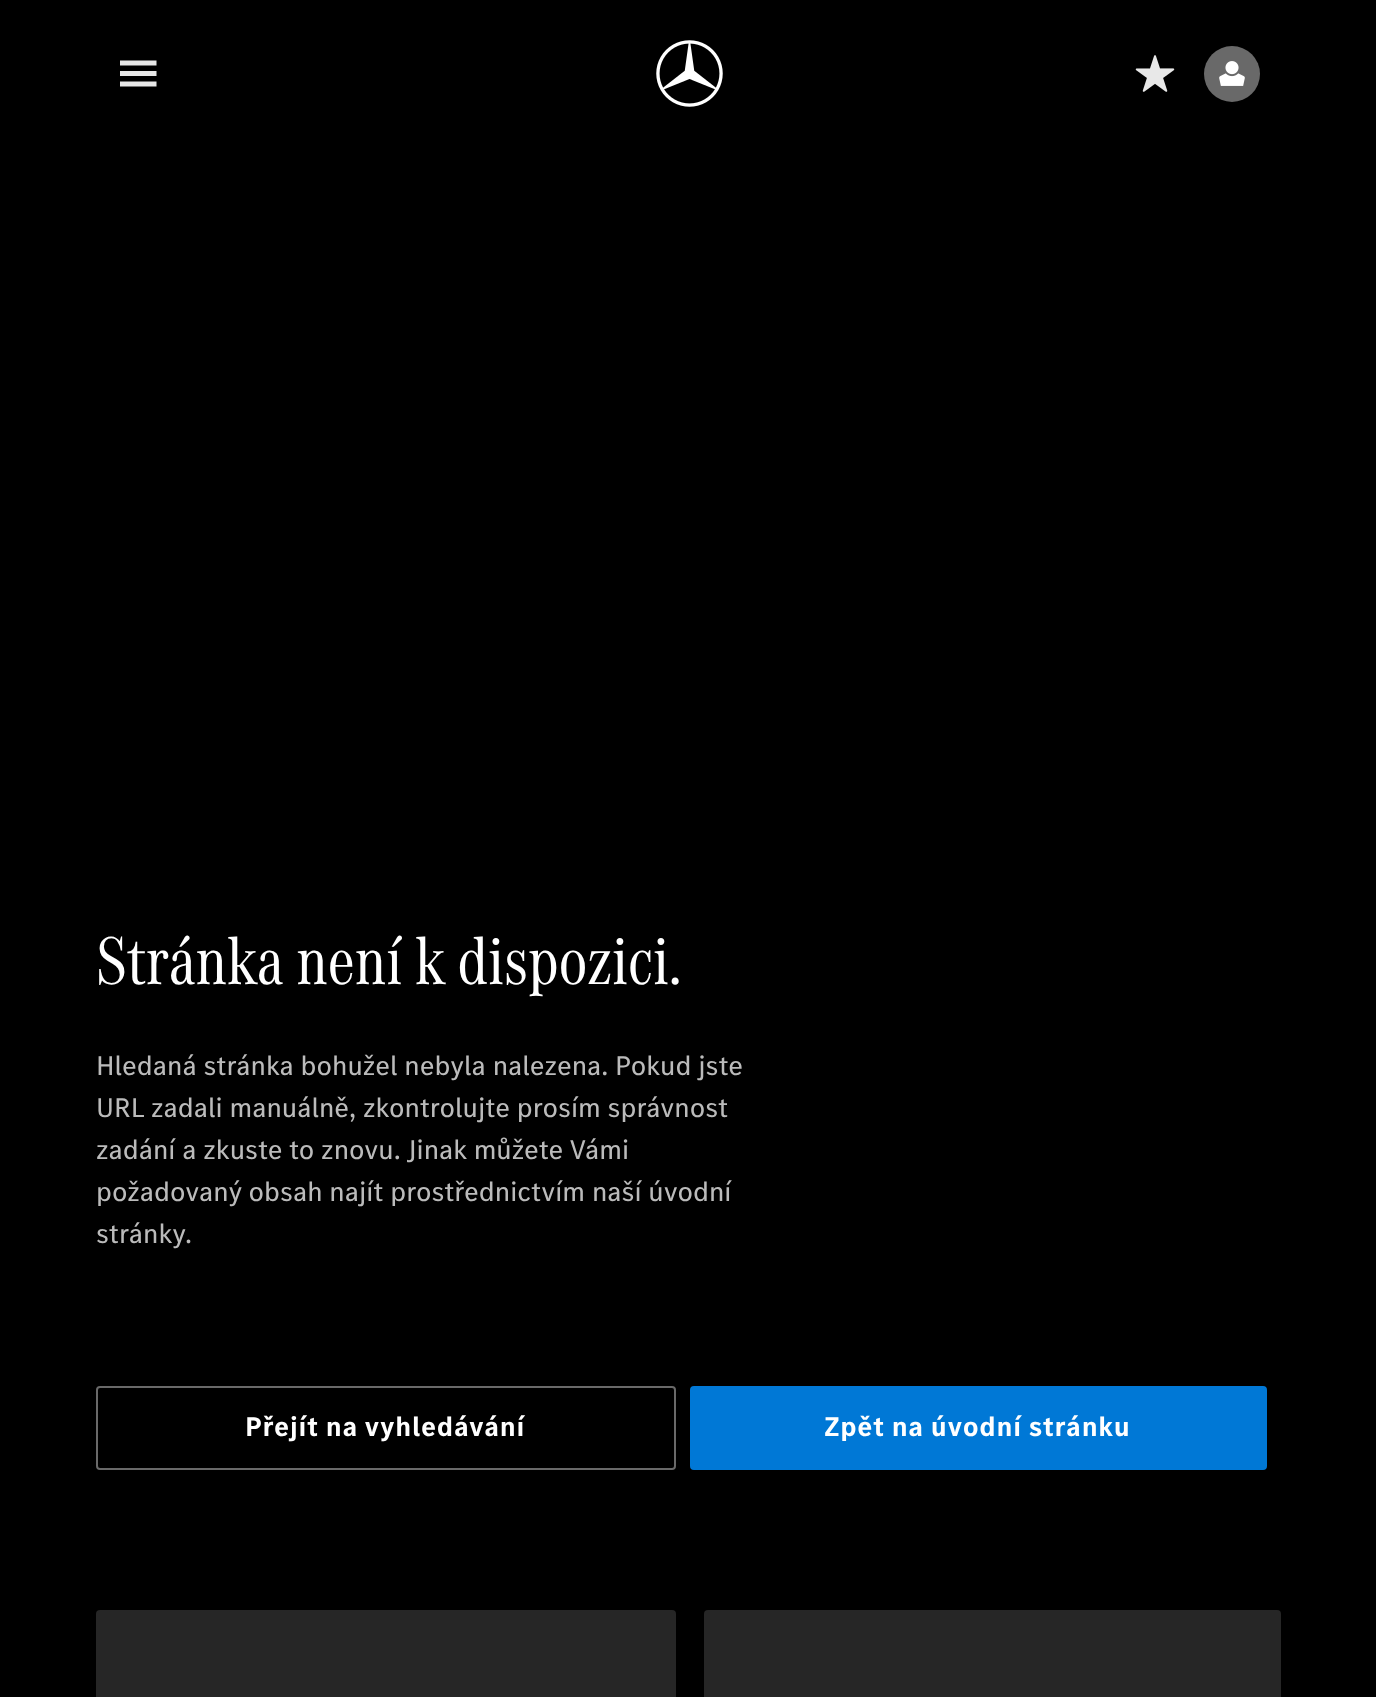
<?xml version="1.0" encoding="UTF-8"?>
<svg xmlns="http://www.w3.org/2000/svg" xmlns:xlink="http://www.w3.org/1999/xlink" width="1376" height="1697">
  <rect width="100%" height="100%" fill="#000000" />
  <path d="M 156.5 71 h -36.5 v 5 h 36.5 z m 0 -10.5 h -36.5 v 5 h 36.5 z m 0 21 h -36.5 v 5 h 36.5 z" fill="#e8e8e8" />
  <image x="656" y="40" width="67" height="67" xlink:href="image1.png" />
  <image x="1135" y="55" width="40" height="37" xlink:href="image2.png" />
  <circle cx="1232" cy="74" r="28" fill="#696969" />
  <image x="1219" y="61" width="26" height="25" xlink:href="image3.png" />
  <rect x="97" y="1387" width="578" height="82" rx="3" fill="none" stroke="#696969" stroke-width="2" />
  <rect x="691" y="1387" width="575" height="82" rx="3" fill="#0078d6" stroke="#0078d6" stroke-width="2" />
  <rect x="96" y="1610" width="580" height="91" rx="4" fill="#262626" />
  <rect x="704" y="1610" width="577" height="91" rx="4" fill="#262626" />
  <text x="96" y="984" style="font-family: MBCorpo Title; font-size: 70px; fill: #ffffff">Stránka není k dispozici.</text>
  <text x="96" y="1075" style="font-family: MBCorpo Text; font-size: 28px; fill: #bbbbbb">Hledaná stránka bohužel nebyla nalezena. Pokud jste</text>
  <text x="96" y="1117" style="font-family: MBCorpo Text; font-size: 28px; fill: #bbbbbb">URL zadali manuálně, zkontrolujte prosím správnost</text>
  <text x="96" y="1159" style="font-family: MBCorpo Text; font-size: 28px; fill: #bbbbbb">zadání a zkuste to znovu. Jinak můžete Vámi</text>
  <text x="96" y="1201" style="font-family: MBCorpo Text; font-size: 28px; fill: #bbbbbb">požadovaný obsah najít prostřednictvím naší úvodní</text>
  <text x="96" y="1243" style="font-family: MBCorpo Text; font-size: 28px; fill: #bbbbbb">stránky.</text>
  <text x="245" y="1436" style="font-family: MBCorpo Text; font-size: 28px; font-weight: bold; letter-spacing: 0.7px; fill: #ffffff">Přejít na vyhledávání</text>
  <text x="824" y="1436" style="font-family: MBCorpo Text; font-size: 28px; font-weight: bold; letter-spacing: 0.7px; fill: #ffffff">Zpět na úvodní stránku</text>
</svg>
